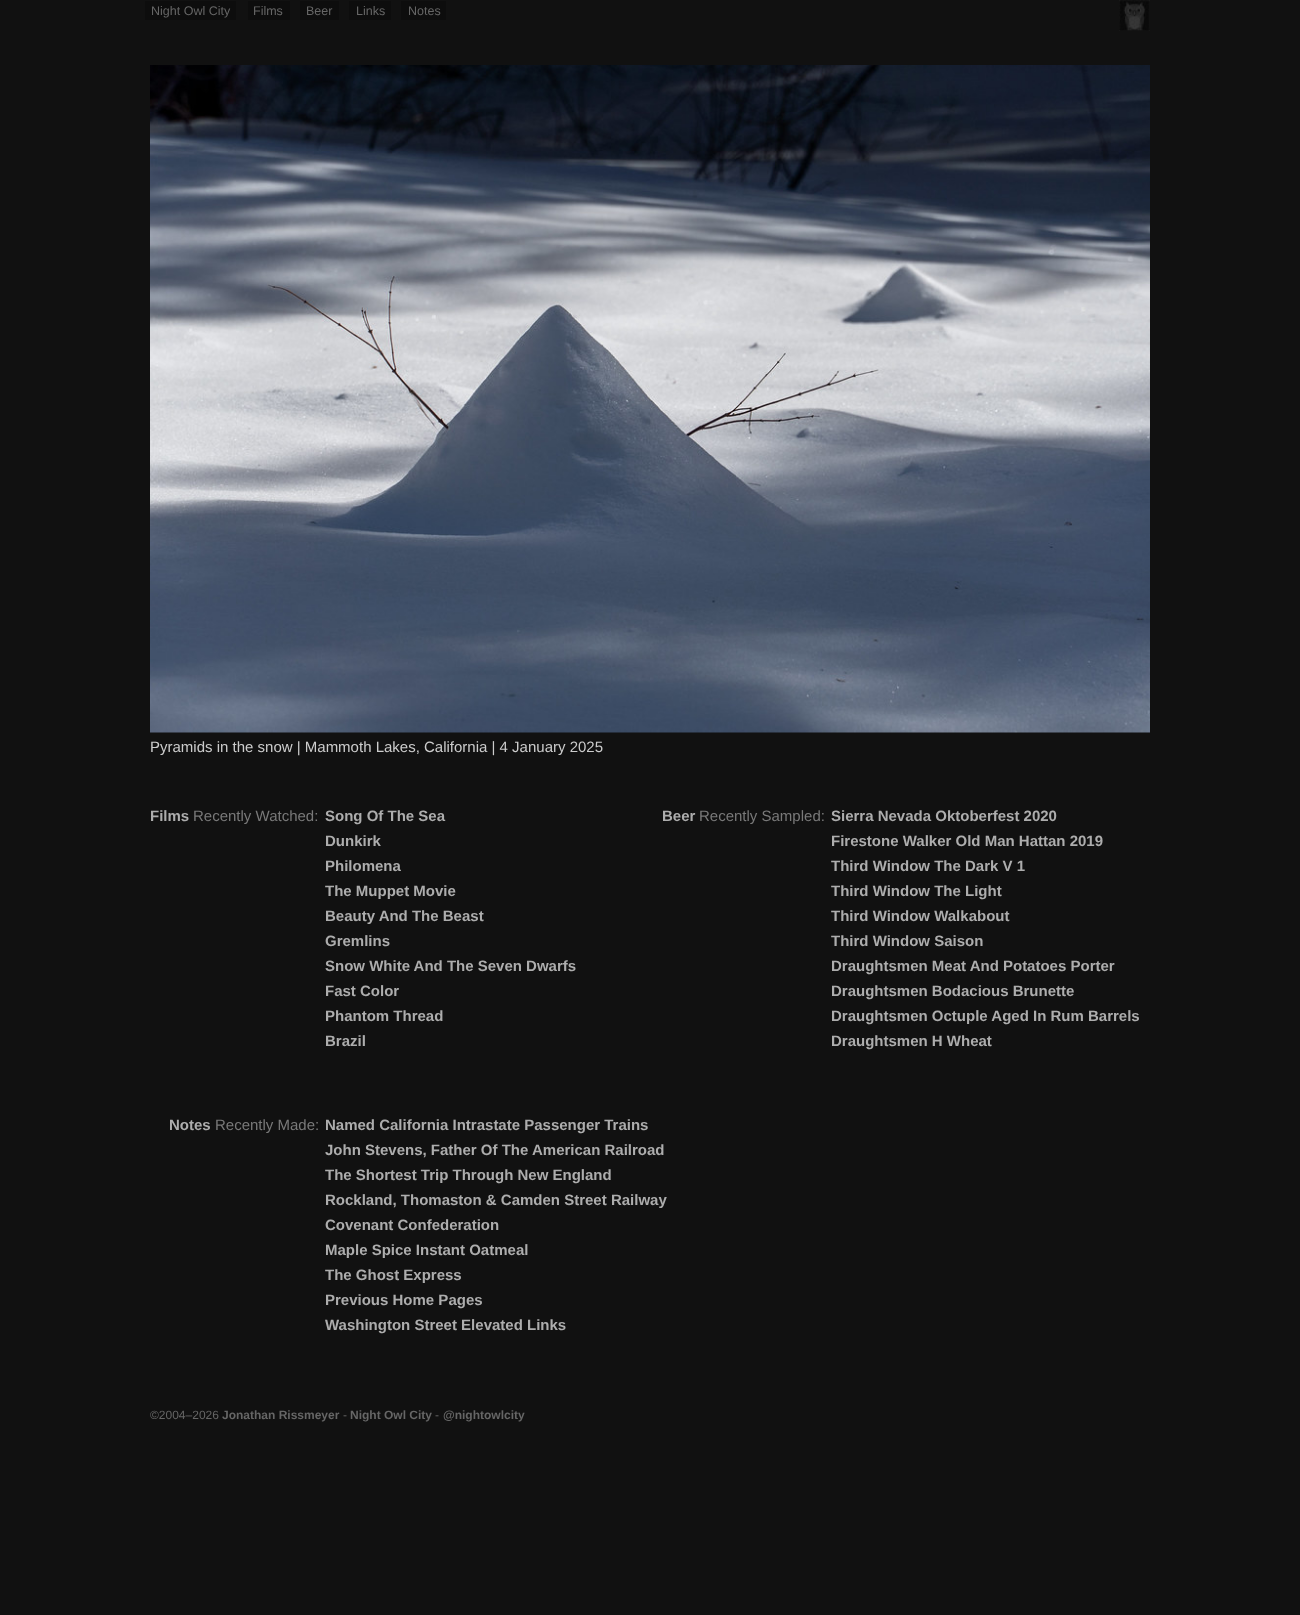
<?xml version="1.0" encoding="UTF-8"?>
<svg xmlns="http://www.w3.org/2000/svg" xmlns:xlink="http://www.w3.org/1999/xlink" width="1300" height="1615">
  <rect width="100%" height="100%" fill="#111111" />
  <rect x="145" y="1" width="91" height="19" fill="#0d0d0d" />
  <rect x="248" y="1" width="42" height="19" fill="#0d0d0d" />
  <rect x="300" y="1" width="39" height="19" fill="#0d0d0d" />
  <rect x="349" y="1" width="42" height="19" fill="#0d0d0d" />
  <rect x="401" y="1" width="45" height="19" fill="#0d0d0d" />
  <image x="1119" y="0" width="31" height="31" xlink:href="image1.png" />
  <image x="150" y="65" width="1000" height="668" xlink:href="image2.png" />
  <text x="151" y="15" style="font-family: Liberation Sans; font-size: 12.5px; fill: #666666">Night Owl City</text>
  <text x="253" y="15" style="font-family: Liberation Sans; font-size: 12.5px; fill: #666666">Films</text>
  <text x="306" y="15" style="font-family: Liberation Sans; font-size: 12.5px; fill: #666666">Beer</text>
  <text x="356" y="15" style="font-family: Liberation Sans; font-size: 12.5px; fill: #666666">Links</text>
  <text x="408" y="15" style="font-family: Liberation Sans; font-size: 12.5px; fill: #666666">Notes</text>
  <text x="150" y="752" style="font-family: Liberation Sans; font-size: 15px; fill: #cccccc">Pyramids in the snow | Mammoth Lakes, California | 4 January 2025</text>
  <text x="150" y="821" style="font-family: Liberation Sans; font-size: 15px; font-weight: bold; fill: #adadad">Films</text>
  <text x="193" y="821" style="font-family: Liberation Sans; font-size: 15px; fill: #797979">Recently Watched:</text>
  <text x="325" y="821" style="font-family: Liberation Sans; font-size: 15px; font-weight: bold; fill: #adadad">Song Of The Sea</text>
  <text x="325" y="846" style="font-family: Liberation Sans; font-size: 15px; font-weight: bold; fill: #adadad">Dunkirk</text>
  <text x="325" y="871" style="font-family: Liberation Sans; font-size: 15px; font-weight: bold; fill: #adadad">Philomena</text>
  <text x="325" y="896" style="font-family: Liberation Sans; font-size: 15px; font-weight: bold; fill: #adadad">The Muppet Movie</text>
  <text x="325" y="921" style="font-family: Liberation Sans; font-size: 15px; font-weight: bold; fill: #adadad">Beauty And The Beast</text>
  <text x="325" y="946" style="font-family: Liberation Sans; font-size: 15px; font-weight: bold; fill: #adadad">Gremlins</text>
  <text x="325" y="971" style="font-family: Liberation Sans; font-size: 15px; font-weight: bold; fill: #adadad">Snow White And The Seven Dwarfs</text>
  <text x="325" y="996" style="font-family: Liberation Sans; font-size: 15px; font-weight: bold; fill: #adadad">Fast Color</text>
  <text x="325" y="1021" style="font-family: Liberation Sans; font-size: 15px; font-weight: bold; fill: #adadad">Phantom Thread</text>
  <text x="325" y="1046" style="font-family: Liberation Sans; font-size: 15px; font-weight: bold; fill: #adadad">Brazil</text>
  <text x="662" y="821" style="font-family: Liberation Sans; font-size: 15px; font-weight: bold; fill: #adadad">Beer</text>
  <text x="699" y="821" style="font-family: Liberation Sans; font-size: 15px; fill: #797979">Recently Sampled:</text>
  <text x="831" y="821" style="font-family: Liberation Sans; font-size: 15px; font-weight: bold; fill: #adadad">Sierra Nevada Oktoberfest 2020</text>
  <text x="831" y="846" style="font-family: Liberation Sans; font-size: 15px; font-weight: bold; fill: #adadad">Firestone Walker Old Man Hattan 2019</text>
  <text x="831" y="871" style="font-family: Liberation Sans; font-size: 15px; font-weight: bold; fill: #adadad">Third Window The Dark V 1</text>
  <text x="831" y="896" style="font-family: Liberation Sans; font-size: 15px; font-weight: bold; fill: #adadad">Third Window The Light</text>
  <text x="831" y="921" style="font-family: Liberation Sans; font-size: 15px; font-weight: bold; fill: #adadad">Third Window Walkabout</text>
  <text x="831" y="946" style="font-family: Liberation Sans; font-size: 15px; font-weight: bold; fill: #adadad">Third Window Saison</text>
  <text x="831" y="971" style="font-family: Liberation Sans; font-size: 15px; font-weight: bold; fill: #adadad">Draughtsmen Meat And Potatoes Porter</text>
  <text x="831" y="996" style="font-family: Liberation Sans; font-size: 15px; font-weight: bold; fill: #adadad">Draughtsmen Bodacious Brunette</text>
  <text x="831" y="1021" style="font-family: Liberation Sans; font-size: 15px; font-weight: bold; fill: #adadad">Draughtsmen Octuple Aged In Rum Barrels</text>
  <text x="831" y="1046" style="font-family: Liberation Sans; font-size: 15px; font-weight: bold; fill: #adadad">Draughtsmen H Wheat</text>
  <text x="169" y="1130" style="font-family: Liberation Sans; font-size: 15px; font-weight: bold; fill: #adadad">Notes</text>
  <text x="215" y="1130" style="font-family: Liberation Sans; font-size: 15px; fill: #797979">Recently Made:</text>
  <text x="325" y="1130" style="font-family: Liberation Sans; font-size: 15px; font-weight: bold; fill: #adadad">Named California Intrastate Passenger Trains</text>
  <text x="325" y="1155" style="font-family: Liberation Sans; font-size: 15px; font-weight: bold; fill: #adadad">John Stevens, Father Of The American Railroad</text>
  <text x="325" y="1180" style="font-family: Liberation Sans; font-size: 15px; font-weight: bold; fill: #adadad">The Shortest Trip Through New England</text>
  <text x="325" y="1205" style="font-family: Liberation Sans; font-size: 15px; font-weight: bold; fill: #adadad">Rockland, Thomaston &amp; Camden Street Railway</text>
  <text x="325" y="1230" style="font-family: Liberation Sans; font-size: 15px; font-weight: bold; fill: #adadad">Covenant Confederation</text>
  <text x="325" y="1255" style="font-family: Liberation Sans; font-size: 15px; font-weight: bold; fill: #adadad">Maple Spice Instant Oatmeal</text>
  <text x="325" y="1280" style="font-family: Liberation Sans; font-size: 15px; font-weight: bold; fill: #adadad">The Ghost Express</text>
  <text x="325" y="1305" style="font-family: Liberation Sans; font-size: 15px; font-weight: bold; fill: #adadad">Previous Home Pages</text>
  <text x="325" y="1330" style="font-family: Liberation Sans; font-size: 15px; font-weight: bold; fill: #adadad">Washington Street Elevated Links</text>
  <text x="150" y="1419" style="font-family: Liberation Sans; font-size: 12px; fill: #666666">©2004–2026</text>
  <text x="222" y="1419" style="font-family: Liberation Sans; font-size: 12px; font-weight: bold; fill: #666666">Jonathan Rissmeyer</text>
  <text x="343" y="1419" style="font-family: Liberation Sans; font-size: 12px; fill: #666666">-</text>
  <text x="350" y="1419" style="font-family: Liberation Sans; font-size: 12px; font-weight: bold; fill: #666666">Night Owl City</text>
  <text x="435" y="1419" style="font-family: Liberation Sans; font-size: 12px; fill: #666666">-</text>
  <text x="443" y="1419" style="font-family: Liberation Sans; font-size: 12px; font-weight: bold; fill: #666666">@nightowlcity</text>
</svg>
